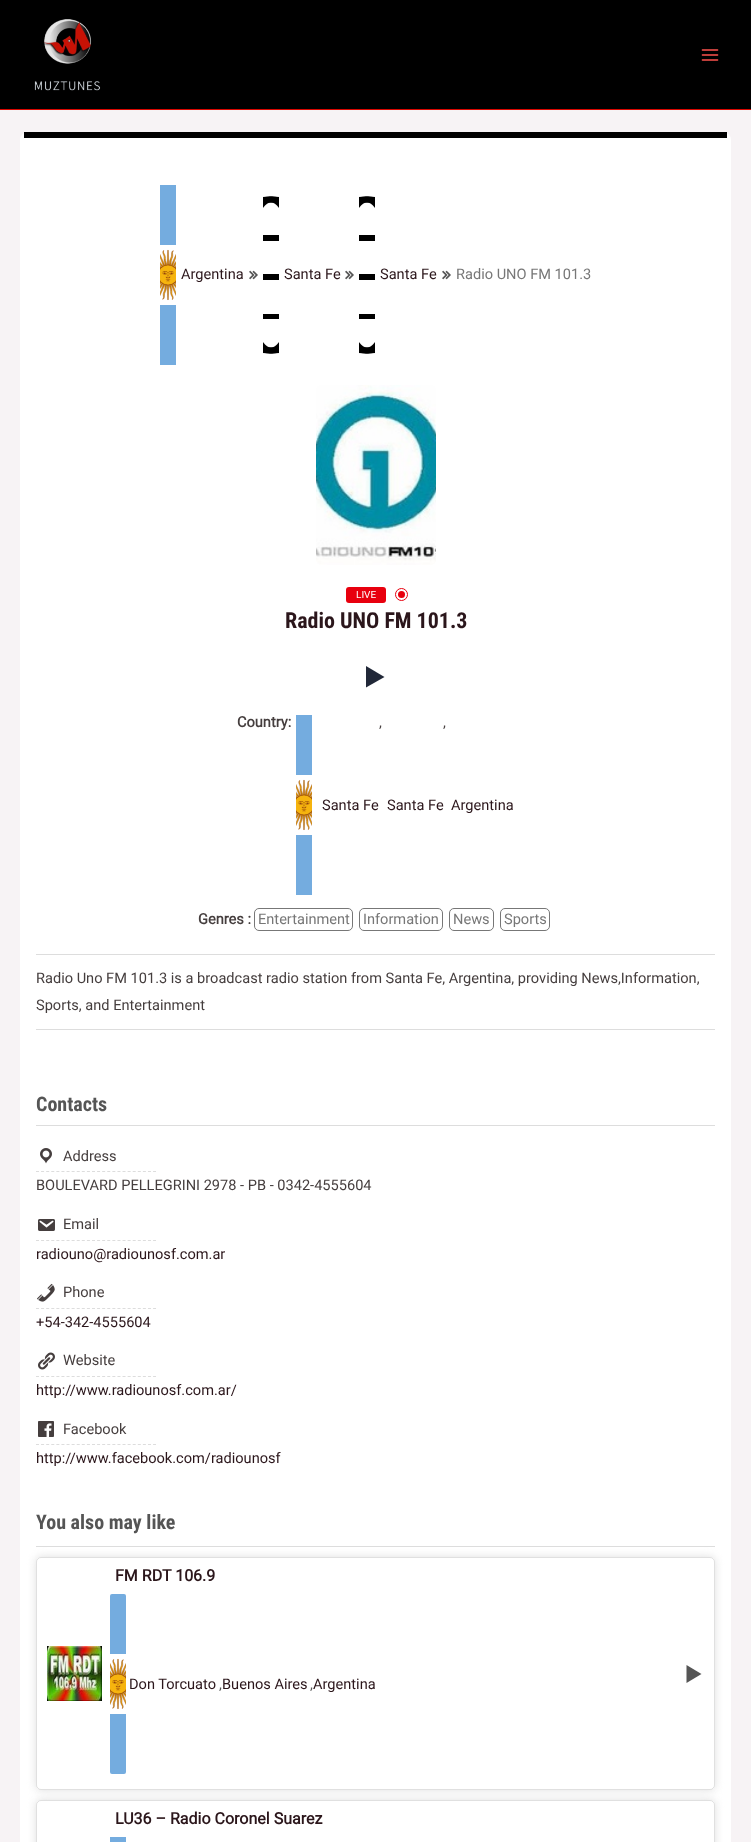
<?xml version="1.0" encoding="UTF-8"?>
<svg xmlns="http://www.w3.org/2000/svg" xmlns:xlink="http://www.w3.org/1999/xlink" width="751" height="1842">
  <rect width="100%" height="100%" fill="#f7f3f5" />
  <rect width="751" height="109" fill="#000000" />
  <rect y="109" width="751" height="1" fill="#d90700" />
  <image x="34" y="19" width="67" height="72" xlink:href="image1.png" />
  <image x="701" y="49" width="18" height="12" xlink:href="image2.png" />
  <rect x="20" y="132" width="711" height="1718" rx="8" fill="#ffffff" />
  <rect x="24" y="132" width="703" height="6" fill="#000000" />
  <image x="160" y="185" width="16" height="180" xlink:href="image3.png" />
  <image x="249" y="270" width="9" height="10" xlink:href="image4.png" />
  <image x="263" y="196" width="16" height="158" xlink:href="image5.png" />
  <image x="345" y="270" width="9" height="10" xlink:href="image4.png" />
  <image x="359" y="196" width="16" height="158" xlink:href="image5.png" />
  <image x="442" y="270" width="9" height="10" xlink:href="image4.png" />
  <image x="316" y="385" width="120" height="180" xlink:href="image6.png" />
  <rect x="346" y="587" width="40" height="16" rx="3" fill="#e8000e" />
  <circle cx="401.5" cy="594.5" r="3.5" fill="#e8000e" />
  <circle cx="401.5" cy="594.5" r="6" fill="none" stroke="#e8000e" />
  <rect x="36" y="954" width="679" height="1" fill="#dddddd" />
  <path d="M 366 666 l 18.5 11 l -18.5 10.5 z" fill="#212838" />
  <image x="296" y="715" width="16" height="180" xlink:href="image7.png" />
  <rect x="254.5" y="908.5" width="98" height="22" rx="4.5" fill="none" stroke="#777777" />
  <rect x="359.5" y="908.5" width="83" height="22" rx="4.5" fill="none" stroke="#777777" />
  <rect x="449.5" y="908.5" width="44" height="22" rx="4.5" fill="none" stroke="#777777" />
  <rect x="500.5" y="908.5" width="49" height="22" rx="4.5" fill="none" stroke="#777777" />
  <rect x="36" y="1029" width="679" height="1" fill="#dddddd" />
  <rect x="36" y="1125" width="679" height="1" fill="#dddddd" />
  <path d="M 36 1171.5 h 120" fill="none" stroke="#dddddd" stroke-dasharray="3 2.09" />
  <image x="40" y="1148" width="12" height="16" xlink:href="image8.png" />
  <path d="M 36 1240.5 h 120" fill="none" stroke="#dddddd" stroke-dasharray="3 2.09" />
  <image x="38" y="1219" width="17" height="12" xlink:href="image9.png" />
  <path d="M 36 1308.5 h 120" fill="none" stroke="#dddddd" stroke-dasharray="3 2.09" />
  <image x="37" y="1283" width="18" height="19" xlink:href="image10.png" />
  <path d="M 36 1376.5 h 120" fill="none" stroke="#dddddd" stroke-dasharray="3 2.09" />
  <image x="38" y="1352" width="17" height="18" xlink:href="image11.png" />
  <path d="M 36 1444.5 h 120" fill="none" stroke="#dddddd" stroke-dasharray="3 2.09" />
  <image x="38" y="1421" width="16" height="16" xlink:href="image12.png" />
  <rect x="36" y="1546" width="679" height="1" fill="#dddddd" />
  <rect x="36" y="1557" width="679" height="233" rx="5" fill="#dddddd" filter="blur(4px)" />
  <rect x="36" y="1557" width="679" height="233" rx="5" fill="#ffffff" />
  <rect x="36.5" y="1557.5" width="678" height="232" rx="4.5" fill="none" stroke="#000000" stroke-opacity="0.12" />
  <image x="47" y="1646" width="55" height="55" xlink:href="image13.png" />
  <image x="110" y="1594" width="16" height="180" xlink:href="image14.png" />
  <path d="M 686.5 1665 l 15 9 l -15 9 z" fill="#555555" />
  <rect x="36" y="1800" width="679" height="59" rx="5" fill="#dddddd" filter="blur(4px)" />
  <rect x="36" y="1800" width="679" height="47" rx="5" fill="#ffffff" />
  <rect x="36.5" y="1800.5" width="678" height="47" rx="4.5" fill="none" stroke="#000000" stroke-opacity="0.12" />
  <rect x="110" y="1837" width="16" height="5" fill="#74acdf" />
  <text x="181" y="279" style="font-family: Roboto; font-size: 14.6px; fill: #2b161b">Argentina</text>
  <text x="284" y="279" style="font-family: Roboto; font-size: 14.6px; fill: #2b161b">Santa Fe</text>
  <text x="380" y="279" style="font-family: Roboto; font-size: 14.6px; fill: #2b161b">Santa Fe</text>
  <text x="456" y="279" style="font-family: Roboto; font-size: 14.6px; fill: #777777">Radio UNO FM 101.3</text>
  <text x="356" y="598" style="font-family: Roboto; font-size: 10px; fill: #ffffff">LIVE</text>
  <text x="285" y="628" style="font-family: Roboto Condensed; font-size: 22px; font-weight: bold; fill: #2b161b">Radio UNO FM 101.3</text>
  <text x="237" y="727" style="font-family: Roboto; font-size: 14.6px; font-weight: bold; fill: #453e3e">Country:</text>
  <text x="379" y="727" style="font-family: Roboto; font-size: 14.6px; fill: #453e3e">,</text>
  <text x="443" y="727" style="font-family: Roboto; font-size: 14.6px; fill: #453e3e">,</text>
  <text x="322" y="810" style="font-family: Roboto; font-size: 14.6px; fill: #2b161b">Santa Fe</text>
  <text x="387" y="810" style="font-family: Roboto; font-size: 14.6px; fill: #2b161b">Santa Fe</text>
  <text x="451" y="810" style="font-family: Roboto; font-size: 14.6px; fill: #2b161b">Argentina</text>
  <text x="198" y="924" style="font-family: Roboto; font-size: 14.6px; font-weight: bold; fill: #453e3e">Genres :</text>
  <text x="258" y="924" style="font-family: Roboto; font-size: 14.6px; fill: #777777">Entertainment</text>
  <text x="363" y="924" style="font-family: Roboto; font-size: 14.6px; fill: #777777">Information</text>
  <text x="453" y="924" style="font-family: Roboto; font-size: 14.6px; fill: #777777">News</text>
  <text x="504" y="924" style="font-family: Roboto; font-size: 14.6px; fill: #777777">Sports</text>
  <text x="36" y="983" style="font-family: Roboto; font-size: 14.6px; fill: #453e3e">Radio Uno FM 101.3 is a broadcast radio station from Santa Fe, Argentina, providing News,Information,</text>
  <text x="36" y="1010" style="font-family: Roboto; font-size: 14.6px; fill: #453e3e">Sports, and Entertainment</text>
  <text x="36" y="1111" style="font-family: Roboto Condensed; font-size: 20px; font-weight: bold; fill: #555555">Contacts</text>
  <text x="63" y="1161" style="font-family: Roboto; font-size: 14.6px; fill: #453e3e">Address</text>
  <text x="36" y="1190" style="font-family: Roboto; font-size: 14.6px; fill: #453e3e">BOULEVARD PELLEGRINI 2978 - PB - 0342-4555604</text>
  <text x="63" y="1229" style="font-family: Roboto; font-size: 14.6px; fill: #453e3e">Email</text>
  <text x="36" y="1259" style="font-family: Roboto; font-size: 14.6px; fill: #2b161b">radiouno@radiounosf.com.ar</text>
  <text x="63" y="1297" style="font-family: Roboto; font-size: 14.6px; fill: #453e3e">Phone</text>
  <text x="36" y="1327" style="font-family: Roboto; font-size: 14.6px; fill: #2b161b">+54-342-4555604</text>
  <text x="63" y="1365" style="font-family: Roboto; font-size: 14.6px; fill: #453e3e">Website</text>
  <text x="36" y="1395" style="font-family: Roboto; font-size: 14.6px; fill: #2b161b">http://www.radiounosf.com.ar/</text>
  <text x="63" y="1434" style="font-family: Roboto; font-size: 14.6px; fill: #453e3e">Facebook</text>
  <text x="36" y="1463" style="font-family: Roboto; font-size: 14.6px; fill: #2b161b">http://www.facebook.com/radiounosf</text>
  <text x="36" y="1529" style="font-family: Roboto Condensed; font-size: 20px; font-weight: bold; fill: #555555">You also may like</text>
  <text x="115" y="1581" style="font-family: Roboto; font-size: 16px; font-weight: bold; fill: #2b161b">FM RDT 106.9</text>
  <text x="129" y="1689" style="font-family: Roboto; font-size: 14.6px; fill: #2b161b">Don Torcuato</text>
  <text x="219" y="1689" style="font-family: Roboto; font-size: 14.6px; fill: #555555">,</text>
  <text x="222" y="1689" style="font-family: Roboto; font-size: 14.6px; fill: #2b161b">Buenos Aires</text>
  <text x="310" y="1689" style="font-family: Roboto; font-size: 14.6px; fill: #555555">,</text>
  <text x="313" y="1689" style="font-family: Roboto; font-size: 14.6px; fill: #2b161b">Argentina</text>
  <text x="115" y="1824" style="font-family: Roboto; font-size: 16px; font-weight: bold; fill: #2b161b">LU36 – Radio Coronel Suarez</text>
</svg>
